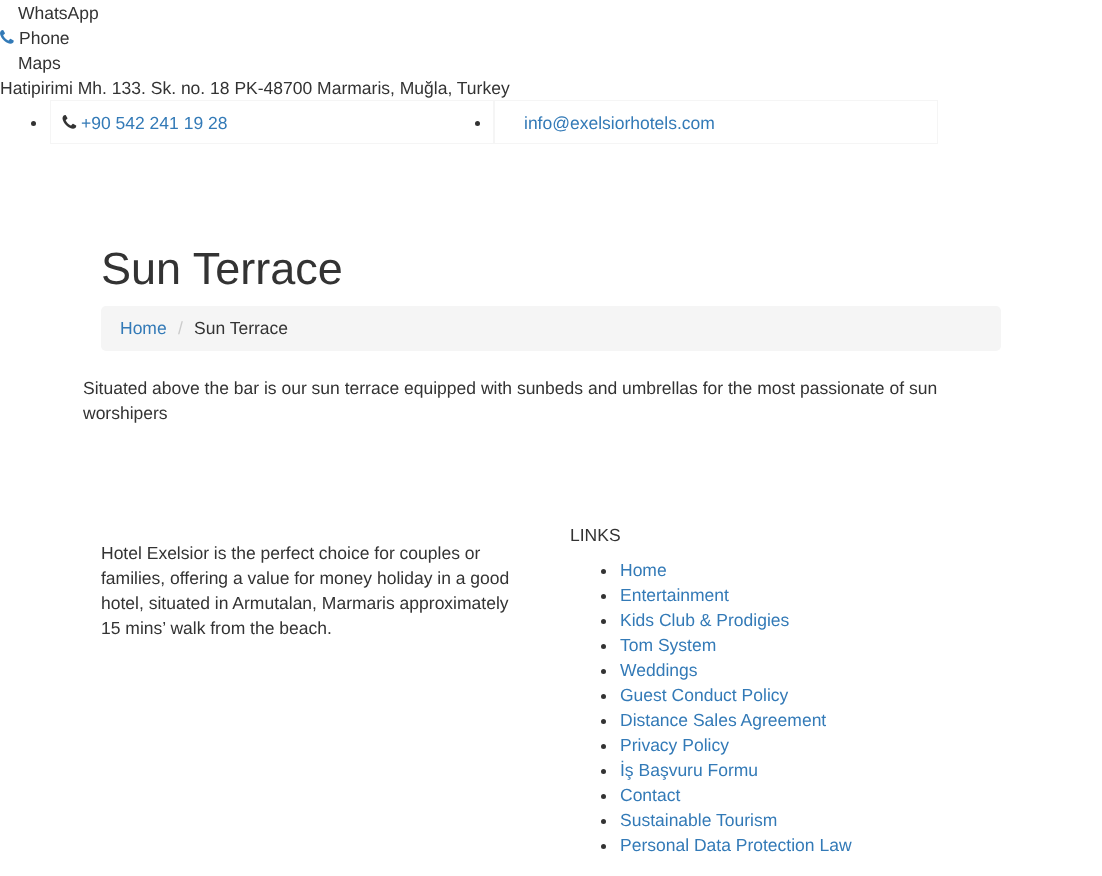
<?xml version="1.0" encoding="UTF-8"?>
<svg xmlns="http://www.w3.org/2000/svg" xmlns:xlink="http://www.w3.org/1999/xlink" width="1102" height="876">
  <rect width="100%" height="100%" fill="#ffffff" />
  <image x="0" y="30" width="14" height="14" xlink:href="image1.png" />
  <rect x="50.5" y="100.5" width="443" height="43" fill="none" stroke="#f5f5f5" />
  <circle cx="33.5" cy="123.5" r="2.5" fill="#333333" />
  <image x="62" y="115" width="15" height="14" xlink:href="image2.png" />
  <rect x="494.5" y="100.5" width="443" height="43" fill="none" stroke="#f5f5f5" />
  <circle cx="477.5" cy="123.5" r="2.5" fill="#333333" />
  <rect x="101" y="306" width="900" height="45" rx="5" fill="#f5f5f5" />
  <circle cx="603.5" cy="571.5" r="2.5" fill="#333333" />
  <circle cx="603.5" cy="596.5" r="2.5" fill="#333333" />
  <circle cx="603.5" cy="621.5" r="2.5" fill="#333333" />
  <circle cx="603.5" cy="646.5" r="2.5" fill="#333333" />
  <circle cx="603.5" cy="671.5" r="2.5" fill="#333333" />
  <circle cx="603.5" cy="696.5" r="2.5" fill="#333333" />
  <circle cx="603.5" cy="721.5" r="2.5" fill="#333333" />
  <circle cx="603.5" cy="746.5" r="2.5" fill="#333333" />
  <circle cx="603.5" cy="771.5" r="2.5" fill="#333333" />
  <circle cx="603.5" cy="796.5" r="2.5" fill="#333333" />
  <circle cx="603.5" cy="821.5" r="2.5" fill="#333333" />
  <circle cx="603.5" cy="846.5" r="2.5" fill="#333333" />
  <text x="18" y="19" style="font-family: Liberation Sans; font-size: 17.5px; fill: #333333">WhatsApp</text>
  <text x="19" y="44" style="font-family: Liberation Sans; font-size: 17.5px; fill: #333333">Phone</text>
  <text x="18" y="69" style="font-family: Liberation Sans; font-size: 17.5px; fill: #333333">Maps</text>
  <text x="0" y="94" style="font-family: Liberation Sans; font-size: 17.5px; fill: #333333">Hatipirimi Mh. 133. Sk. no. 18 PK-48700 Marmaris, Muğla, Turkey</text>
  <text x="81" y="129" style="font-family: Liberation Sans; font-size: 17.5px; fill: #337ab7">+90 542 241 19 28</text>
  <text x="524" y="129" style="font-family: Liberation Sans; font-size: 17.5px; fill: #337ab7">info@exelsiorhotels.com</text>
  <text x="101" y="284" style="font-family: Liberation Sans; font-size: 45px; fill: #333333">Sun Terrace</text>
  <text x="120" y="334" style="font-family: Liberation Sans; font-size: 17.5px; fill: #337ab7">Home</text>
  <text x="178" y="334" style="font-family: Liberation Sans; font-size: 17.5px; fill: #cccccc">/</text>
  <text x="194" y="334" style="font-family: Liberation Sans; font-size: 17.5px; fill: #333333">Sun Terrace</text>
  <text x="83" y="394" style="font-family: Liberation Sans; font-size: 17.5px; fill: #333333">Situated above the bar is our sun terrace equipped with sunbeds and umbrellas for the most passionate of sun</text>
  <text x="83" y="419" style="font-family: Liberation Sans; font-size: 17.5px; fill: #333333">worshipers</text>
  <text x="101" y="559" style="font-family: Liberation Sans; font-size: 17.5px; fill: #333333">Hotel Exelsior is the perfect choice for couples or</text>
  <text x="101" y="584" style="font-family: Liberation Sans; font-size: 17.5px; fill: #333333">families, offering a value for money holiday in a good</text>
  <text x="101" y="609" style="font-family: Liberation Sans; font-size: 17.5px; fill: #333333">hotel, situated in Armutalan, Marmaris approximately</text>
  <text x="101" y="634" style="font-family: Liberation Sans; font-size: 17.5px; fill: #333333">15 mins’ walk from the beach.</text>
  <text x="570" y="541" style="font-family: Liberation Sans; font-size: 17.5px; fill: #333333">LINKS</text>
  <text x="620" y="576" style="font-family: Liberation Sans; font-size: 17.5px; fill: #337ab7">Home</text>
  <text x="620" y="601" style="font-family: Liberation Sans; font-size: 17.5px; fill: #337ab7">Entertainment</text>
  <text x="620" y="626" style="font-family: Liberation Sans; font-size: 17.5px; fill: #337ab7">Kids Club &amp; Prodigies</text>
  <text x="620" y="651" style="font-family: Liberation Sans; font-size: 17.5px; fill: #337ab7">Tom System</text>
  <text x="620" y="676" style="font-family: Liberation Sans; font-size: 17.5px; fill: #337ab7">Weddings</text>
  <text x="620" y="701" style="font-family: Liberation Sans; font-size: 17.5px; fill: #337ab7">Guest Conduct Policy</text>
  <text x="620" y="726" style="font-family: Liberation Sans; font-size: 17.5px; fill: #337ab7">Distance Sales Agreement</text>
  <text x="620" y="751" style="font-family: Liberation Sans; font-size: 17.5px; fill: #337ab7">Privacy Policy</text>
  <text x="620" y="776" style="font-family: Liberation Sans; font-size: 17.5px; fill: #337ab7">İş Başvuru Formu</text>
  <text x="620" y="801" style="font-family: Liberation Sans; font-size: 17.5px; fill: #337ab7">Contact</text>
  <text x="620" y="826" style="font-family: Liberation Sans; font-size: 17.5px; fill: #337ab7">Sustainable Tourism</text>
  <text x="620" y="851" style="font-family: Liberation Sans; font-size: 17.5px; fill: #337ab7">Personal Data Protection Law</text>
</svg>
